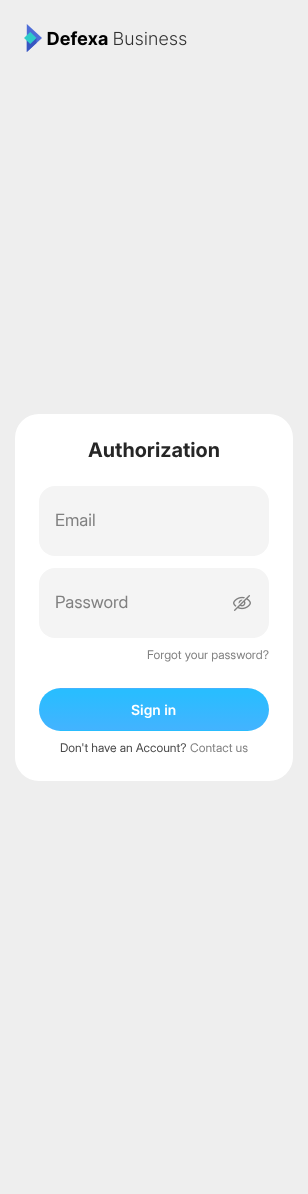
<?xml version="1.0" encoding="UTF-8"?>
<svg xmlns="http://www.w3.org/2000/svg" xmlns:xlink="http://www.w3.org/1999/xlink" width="308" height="1194">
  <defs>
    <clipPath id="clip1"><rect x="39" y="688" width="230" height="43" rx="21.5" /></clipPath>
    <linearGradient id="g1" gradientUnits="userSpaceOnUse" x1="154" y1="648" x2="154" y2="689"><stop offset="0.09" stop-color="#29bdff" /><stop offset="1" stop-color="#43b3ff" /></linearGradient>
    <linearGradient id="g2" gradientUnits="userSpaceOnUse" x1="154" y1="689" x2="154" y2="730"><stop offset="0.09" stop-color="#29bdff" /><stop offset="1" stop-color="#43b3ff" /></linearGradient>
    <linearGradient id="g3" gradientUnits="userSpaceOnUse" x1="154" y1="730" x2="154" y2="771"><stop offset="0.09" stop-color="#29bdff" /><stop offset="1" stop-color="#43b3ff" /></linearGradient>
  </defs>
  <rect width="100%" height="100%" fill="#eeeeee" />
  <image x="24" y="24" width="163" height="28" xlink:href="image1.png" />
  <rect x="15" y="414" width="278" height="367" rx="24" fill="#ffffff" />
  <rect x="39" y="486" width="230" height="70" rx="16" fill="#f4f4f4" />
  <rect x="39" y="568" width="230" height="70" rx="16" fill="#f4f4f4" />
  <image x="233" y="595" width="18" height="16" xlink:href="image2.png" />
  <g clip-path="url(#clip1)">
    <rect x="54" y="688" width="200" height="1" fill="url(#g1)" />
    <rect x="39" y="689" width="230" height="41" fill="url(#g2)" />
    <rect x="54" y="730" width="200" height="1" fill="url(#g3)" />
  </g>
  <text x="88" y="457" style="font-family: Inter; font-size: 20px; font-weight: bold; fill: #262626">Authorization</text>
  <text x="55" y="526" style="font-family: Inter; font-size: 17px; fill: #808080">Email</text>
  <text x="55" y="608" style="font-family: Inter; font-size: 17px; fill: #808080">Password</text>
  <text x="147" y="659" style="font-family: Inter; font-size: 12px; fill: #808080">Forgot your password?</text>
  <text x="131" y="715" style="font-family: Inter; font-size: 14px; font-weight: 600; fill: #ffffff">Sign in</text>
  <text x="60" y="752" style="font-family: Inter; font-size: 12px; fill: #494949">Don't have an Account?</text>
  <text x="190" y="752" style="font-family: Inter; font-size: 12px; fill: #808080">Contact us</text>
</svg>
